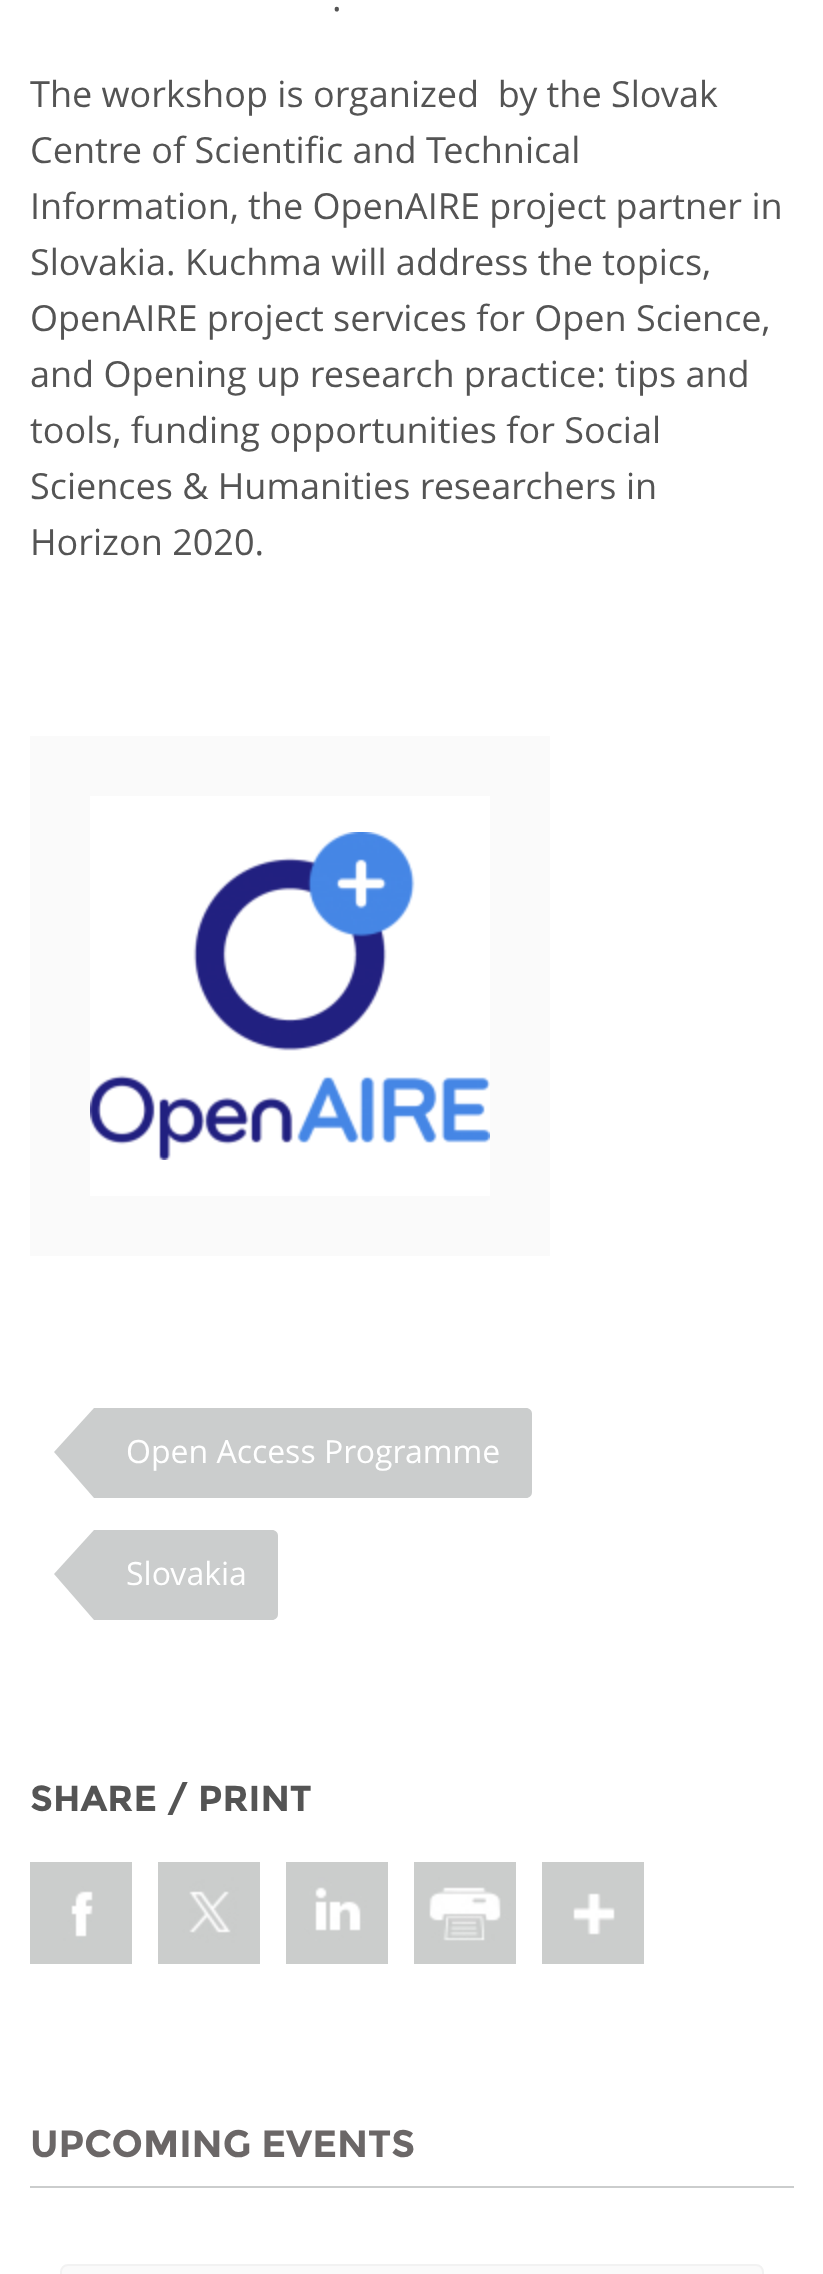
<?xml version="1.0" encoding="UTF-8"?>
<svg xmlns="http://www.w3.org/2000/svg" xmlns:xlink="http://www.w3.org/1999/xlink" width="823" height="2274">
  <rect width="100%" height="100%" fill="#ffffff" />
  <rect x="30" y="736" width="520" height="520" fill="#fafafa" />
  <rect x="90" y="796" width="400" height="400" fill="#ffffff" />
  <image x="90" y="832" width="400" height="328" xlink:href="image1.png" />
  <path d="M 94 1408 h 432 c 3.5 0 6 2.5 6 6 v 78 c 0 3.5 -2.5 6 -6 6 h -432 z" fill="#cbcdcd" />
  <path d="M 94 1408 v 90 l -40 -46 z" fill="#cbcdcd" />
  <path d="M 94 1530 h 178 c 3.5 0 6 2.5 6 6 v 78 c 0 3.5 -2.5 6 -6 6 h -178 z" fill="#cbcdcd" />
  <path d="M 94 1530 v 90 l -40 -46 z" fill="#cbcdcd" />
  <image x="30" y="1862" width="102" height="102" xlink:href="image2.png" />
  <image x="158" y="1862" width="102" height="102" xlink:href="image3.png" />
  <image x="286" y="1862" width="102" height="102" xlink:href="image4.png" />
  <image x="414" y="1862" width="102" height="102" xlink:href="image5.png" />
  <image x="542" y="1862" width="102" height="102" xlink:href="image6.png" />
  <rect x="30" y="2186" width="764" height="2" fill="#cbcdcd" />
  <path d="M 68 2265 h 688 c 4 0 7 3 7 7 v 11 h -702 v -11 c 0 -4 3 -7 7 -7 z" fill="#fafafa" stroke="#f2f2f2" stroke-width="2" />
  <text x="332" y="11" style="font-family: Open Sans; font-size: 36px; fill: #545454">.</text>
  <text x="30" y="107" style="font-family: Open Sans; font-size: 36px; fill: #545454" xml:space="preserve">The workshop is organized  by the Slovak</text>
  <text x="30" y="163" style="font-family: Open Sans; font-size: 36px; fill: #545454">Centre of Scientific and Technical</text>
  <text x="30" y="219" style="font-family: Open Sans; font-size: 36px; fill: #545454">Information, the OpenAIRE project partner in</text>
  <text x="30" y="275" style="font-family: Open Sans; font-size: 36px; fill: #545454">Slovakia. Kuchma will address the topics,</text>
  <text x="30" y="331" style="font-family: Open Sans; font-size: 36px; fill: #545454">OpenAIRE project services for Open Science,</text>
  <text x="30" y="387" style="font-family: Open Sans; font-size: 36px; fill: #545454">and Opening up research practice: tips and</text>
  <text x="30" y="443" style="font-family: Open Sans; font-size: 36px; fill: #545454">tools, funding opportunities for Social</text>
  <text x="30" y="499" style="font-family: Open Sans; font-size: 36px; fill: #545454">Sciences &amp; Humanities researchers in</text>
  <text x="30" y="555" style="font-family: Open Sans; font-size: 36px; fill: #545454">Horizon 2020.</text>
  <text x="126" y="1463" style="font-family: Open Sans; font-size: 32px; fill: #ffffff">Open Access Programme</text>
  <text x="126" y="1585" style="font-family: Open Sans; font-size: 32px; fill: #ffffff">Slovakia</text>
  <text x="30" y="1811" style="font-family: Montserrat; font-size: 36px; font-weight: bold; fill: #545454">SHARE / PRINT</text>
  <text x="30" y="2157" style="font-family: Montserrat; font-size: 38px; font-weight: bold; fill: #6b6767">UPCOMING EVENTS</text>
</svg>
